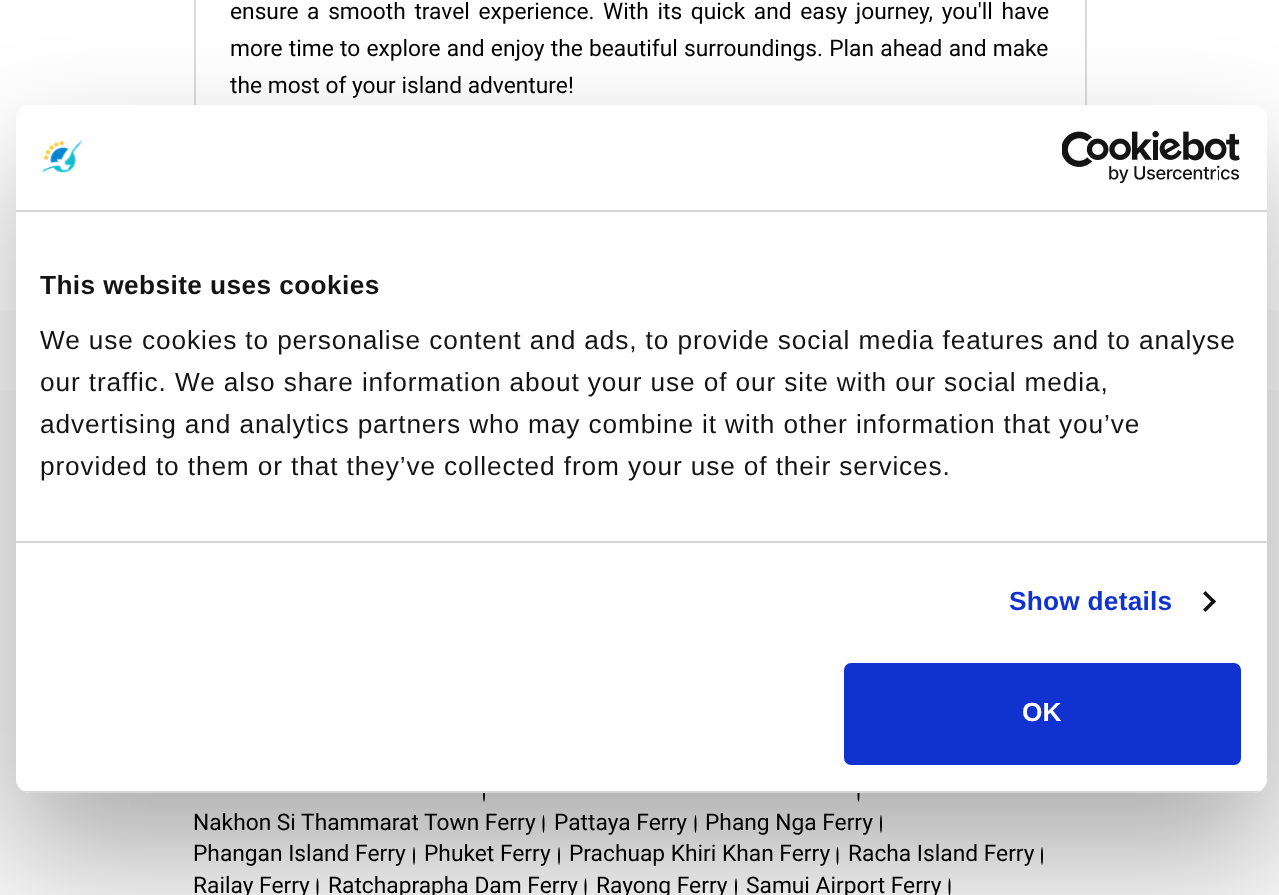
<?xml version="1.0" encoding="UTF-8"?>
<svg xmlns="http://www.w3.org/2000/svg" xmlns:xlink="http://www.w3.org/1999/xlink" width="1279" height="895">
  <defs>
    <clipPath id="clip1"><rect x="16" y="105" width="1251" height="688" rx="14" /></clipPath>
  </defs>
  <rect width="100%" height="100%" fill="#ffffff" />
  <path d="M 1087 -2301 v 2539 l -2 -2 v -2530 z" fill="#dcdcdc" />
  <path d="M 194 238 v -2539 l 2 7 v 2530 z" fill="#dcdcdc" />
  <rect y="310" width="1279" height="80" fill="#fbfbfb" />
  <rect y="390" width="1279" height="505" fill="#f6f6f6" />
  <ellipse cx="484" cy="793" rx="1" ry="9" fill="#000000" />
  <ellipse cx="858.5" cy="793" rx="1" ry="9" fill="#000000" />
  <ellipse cx="543.5" cy="824" rx="1" ry="9" fill="#000000" />
  <ellipse cx="695.5" cy="824" rx="1" ry="9" fill="#000000" />
  <ellipse cx="881" cy="824" rx="1" ry="9" fill="#000000" />
  <ellipse cx="414" cy="856" rx="1" ry="9" fill="#000000" />
  <ellipse cx="559" cy="856" rx="1" ry="9" fill="#000000" />
  <ellipse cx="837.5" cy="856" rx="1" ry="9" fill="#000000" />
  <ellipse cx="1042" cy="856" rx="1" ry="9" fill="#000000" />
  <ellipse cx="317.5" cy="887" rx="1" ry="9" fill="#000000" />
  <ellipse cx="585.5" cy="887" rx="1" ry="9" fill="#000000" />
  <ellipse cx="736" cy="887" rx="1" ry="9" fill="#000000" />
  <ellipse cx="949.5" cy="887" rx="1" ry="9" fill="#000000" />
  <rect x="16" y="161" width="1251" height="688" rx="14" fill="#000000" fill-opacity="0.3" filter="blur(59.5px)" />
  <rect x="16" y="105" width="1251" height="688" rx="14" fill="#ffffff" />
  <rect x="16" y="210" width="1251" height="2" fill="#d6d6d6" />
  <image x="42" y="139" width="41" height="34" xlink:href="image1.png" />
  <image x="1062" y="131" width="178" height="53" xlink:href="image2.png" />
  <rect x="16" y="541" width="1251" height="2" fill="#d6d6d6" />
  <path d="M 1205.5 591 l 10.5 10.5 l -2.5 2.5 l -10.5 -10.5 z" fill="#141414" />
  <path d="M 1213.5 599 l 2.5 2.5 l -10.5 10.5 l -2.5 -2.5 z" fill="#141414" />
  <g clip-path="url(#clip1)">
    <rect x="16" y="791" width="1251" height="2" fill="#d6d6d6" />
  </g>
  <rect x="846" y="665" width="393" height="98" rx="5" fill="#1032cf" stroke="#1032cf" stroke-width="4" />
  <text x="230" y="19" word-spacing="3" style="font-family: Roboto; font-size: 22.75px; fill: #000000">ensure a smooth travel experience. With its quick and easy journey, you'll have</text>
  <text x="230" y="56" word-spacing="0.6" style="font-family: Roboto; font-size: 22.75px; fill: #000000">more time to explore and enjoy the beautiful surroundings. Plan ahead and make</text>
  <text x="230" y="93" style="font-family: Roboto; font-size: 22.75px; fill: #000000">the most of your island adventure!</text>
  <text x="193" y="830" style="font-family: Roboto; font-size: 22.75px; fill: #000000">Nakhon Si Thammarat Town Ferry</text>
  <text x="554" y="830" style="font-family: Roboto; font-size: 22.75px; fill: #000000">Pattaya Ferry</text>
  <text x="705" y="830" style="font-family: Roboto; font-size: 22.75px; fill: #000000">Phang Nga Ferry</text>
  <text x="193" y="861" style="font-family: Roboto; font-size: 22.75px; fill: #000000">Phangan Island Ferry</text>
  <text x="424" y="861" style="font-family: Roboto; font-size: 22.75px; fill: #000000">Phuket Ferry</text>
  <text x="569" y="861" style="font-family: Roboto; font-size: 22.75px; fill: #000000">Prachuap Khiri Khan Ferry</text>
  <text x="848" y="861" style="font-family: Roboto; font-size: 22.75px; fill: #000000">Racha Island Ferry</text>
  <text x="193" y="893" style="font-family: Roboto; font-size: 22.75px; fill: #000000">Railay Ferry</text>
  <text x="328" y="893" style="font-family: Roboto; font-size: 22.75px; fill: #000000">Ratchaprapha Dam Ferry</text>
  <text x="596" y="893" style="font-family: Roboto; font-size: 22.75px; fill: #000000">Rayong Ferry</text>
  <text x="746" y="893" style="font-family: Roboto; font-size: 22.75px; fill: #000000">Samui Airport Ferry</text>
  <text x="40" y="294" style="font-family: Liberation Sans; font-size: 26.25px; font-weight: bold; letter-spacing: 0.4px; fill: #141414">This website uses cookies</text>
  <text x="40" y="349" style="font-family: Liberation Sans; font-size: 26.25px; letter-spacing: 0.88px; fill: #141414">We use cookies to personalise content and ads, to provide social media features and to analyse</text>
  <text x="40" y="391" style="font-family: Liberation Sans; font-size: 26.25px; letter-spacing: 0.88px; fill: #141414">our traffic. We also share information about your use of our site with our social media,</text>
  <text x="40" y="433" style="font-family: Liberation Sans; font-size: 26.25px; letter-spacing: 0.88px; fill: #141414">advertising and analytics partners who may combine it with other information that you’ve</text>
  <text x="40" y="475" style="font-family: Liberation Sans; font-size: 26.25px; letter-spacing: 0.88px; fill: #141414">provided to them or that they’ve collected from your use of their services.</text>
  <text x="1009" y="610" style="font-family: Liberation Sans; font-size: 26.25px; font-weight: bold; letter-spacing: 0.25px; fill: #1032cf">Show details</text>
  <text x="1022" y="721" style="font-family: Liberation Sans; font-size: 26.25px; font-weight: bold; fill: #ffffff">OK</text>
</svg>
